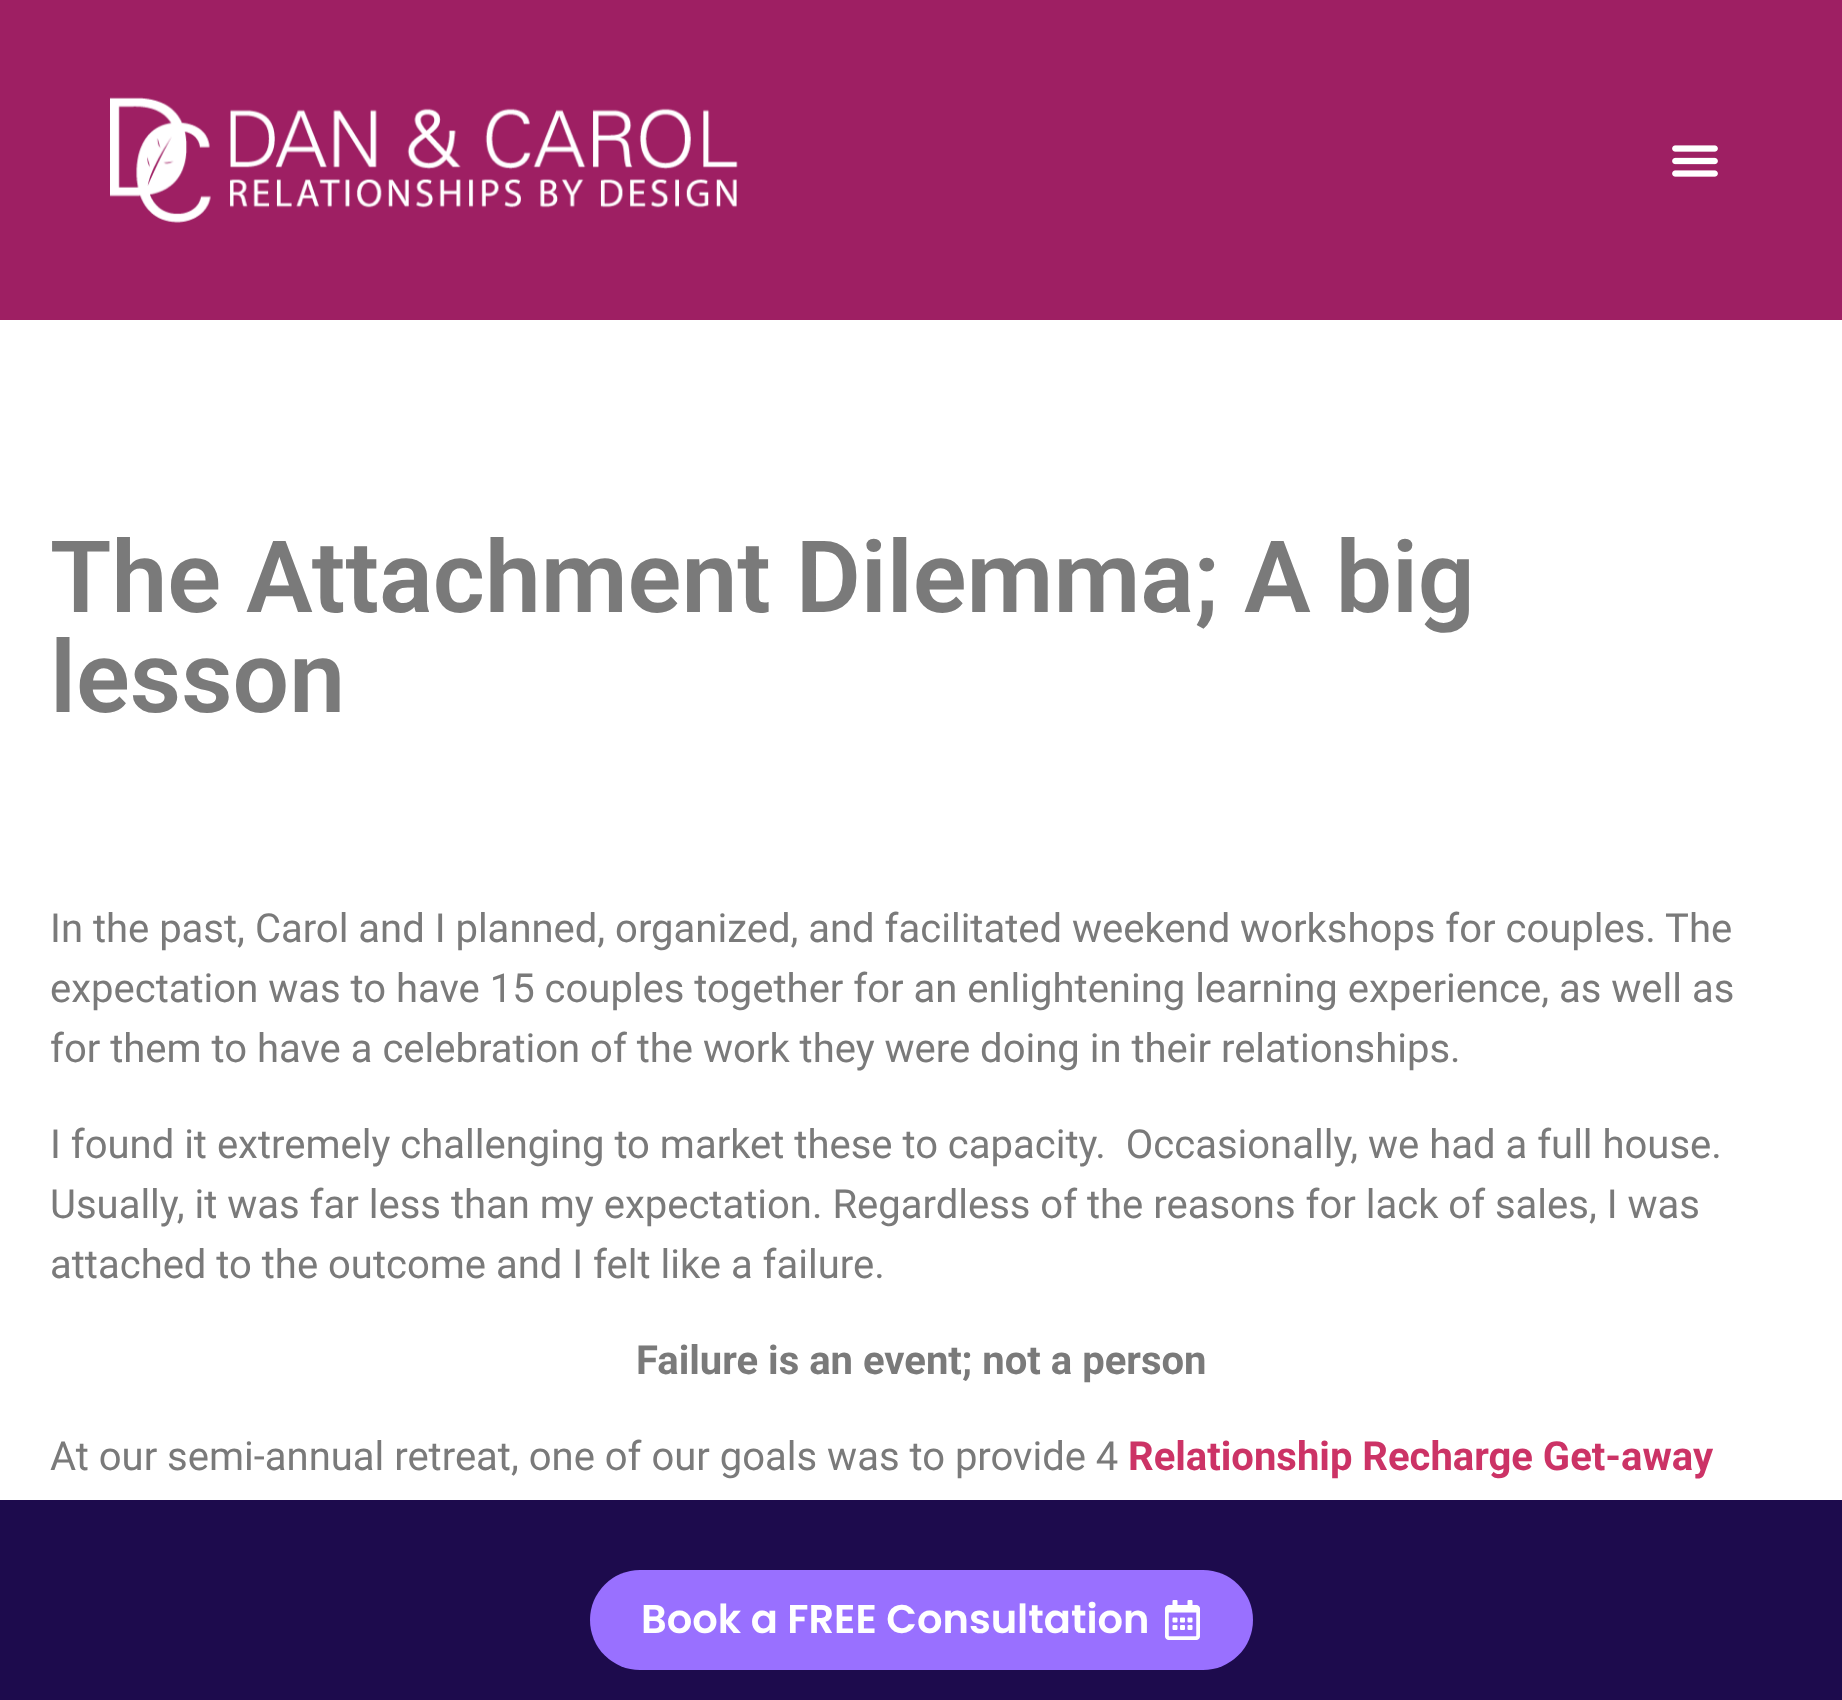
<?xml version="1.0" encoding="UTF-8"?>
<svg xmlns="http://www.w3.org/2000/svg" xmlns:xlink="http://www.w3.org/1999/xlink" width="1842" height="1700">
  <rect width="100%" height="100%" fill="#ffffff" />
  <rect width="1842" height="320" fill="#9e1f63" />
  <image x="110" y="97" width="628" height="126" xlink:href="image1.png" />
  <image x="1672" y="145" width="46" height="32" xlink:href="image2.png" />
  <rect y="1500" width="1842" height="200" fill="#1d0b4d" />
  <rect x="590" y="1570" width="663" height="100" rx="50" fill="#9970ff" />
  <image x="1165" y="1600" width="35" height="40" xlink:href="image3.png" />
  <text x="50" y="612" style="font-family: Roboto; font-size: 100px; font-weight: 600; fill: #7a7a7a">The Attachment Dilemma; A big</text>
  <text x="50" y="712" style="font-family: Roboto; font-size: 100px; font-weight: 600; fill: #7a7a7a">lesson</text>
  <text x="50" y="942" style="font-family: Roboto; font-size: 40px; fill: #7a7a7a">In the past, Carol and I planned, organized, and facilitated weekend workshops for couples. The</text>
  <text x="50" y="1002" style="font-family: Roboto; font-size: 40px; fill: #7a7a7a">expectation was to have 15 couples together for an enlightening learning experience, as well as</text>
  <text x="50" y="1062" style="font-family: Roboto; font-size: 40px; fill: #7a7a7a">for them to have a celebration of the work they were doing in their relationships.</text>
  <text x="50" y="1158" style="font-family: Roboto; font-size: 40px; fill: #7a7a7a" xml:space="preserve">I found it extremely challenging to market these to capacity.  Occasionally, we had a full house.</text>
  <text x="50" y="1218" style="font-family: Roboto; font-size: 40px; fill: #7a7a7a">Usually, it was far less than my expectation. Regardless of the reasons for lack of sales, I was</text>
  <text x="50" y="1278" style="font-family: Roboto; font-size: 40px; fill: #7a7a7a">attached to the outcome and I felt like a failure.</text>
  <text x="636" y="1374" style="font-family: Roboto; font-size: 40px; font-weight: bold; fill: #7a7a7a">Failure is an event; not a person</text>
  <text x="50" y="1470" style="font-family: Roboto; font-size: 40px; fill: #7a7a7a">At our semi-annual retreat, one of our goals was to provide 4</text>
  <text x="1128" y="1470" style="font-family: Roboto; font-size: 40px; font-weight: bold; fill: #cc3366">Relationship Recharge Get-away</text>
  <text x="641" y="1633" style="font-family: Poppins; font-size: 40px; font-weight: 600; fill: #ffffff">Book a FREE Consultation</text>
</svg>
